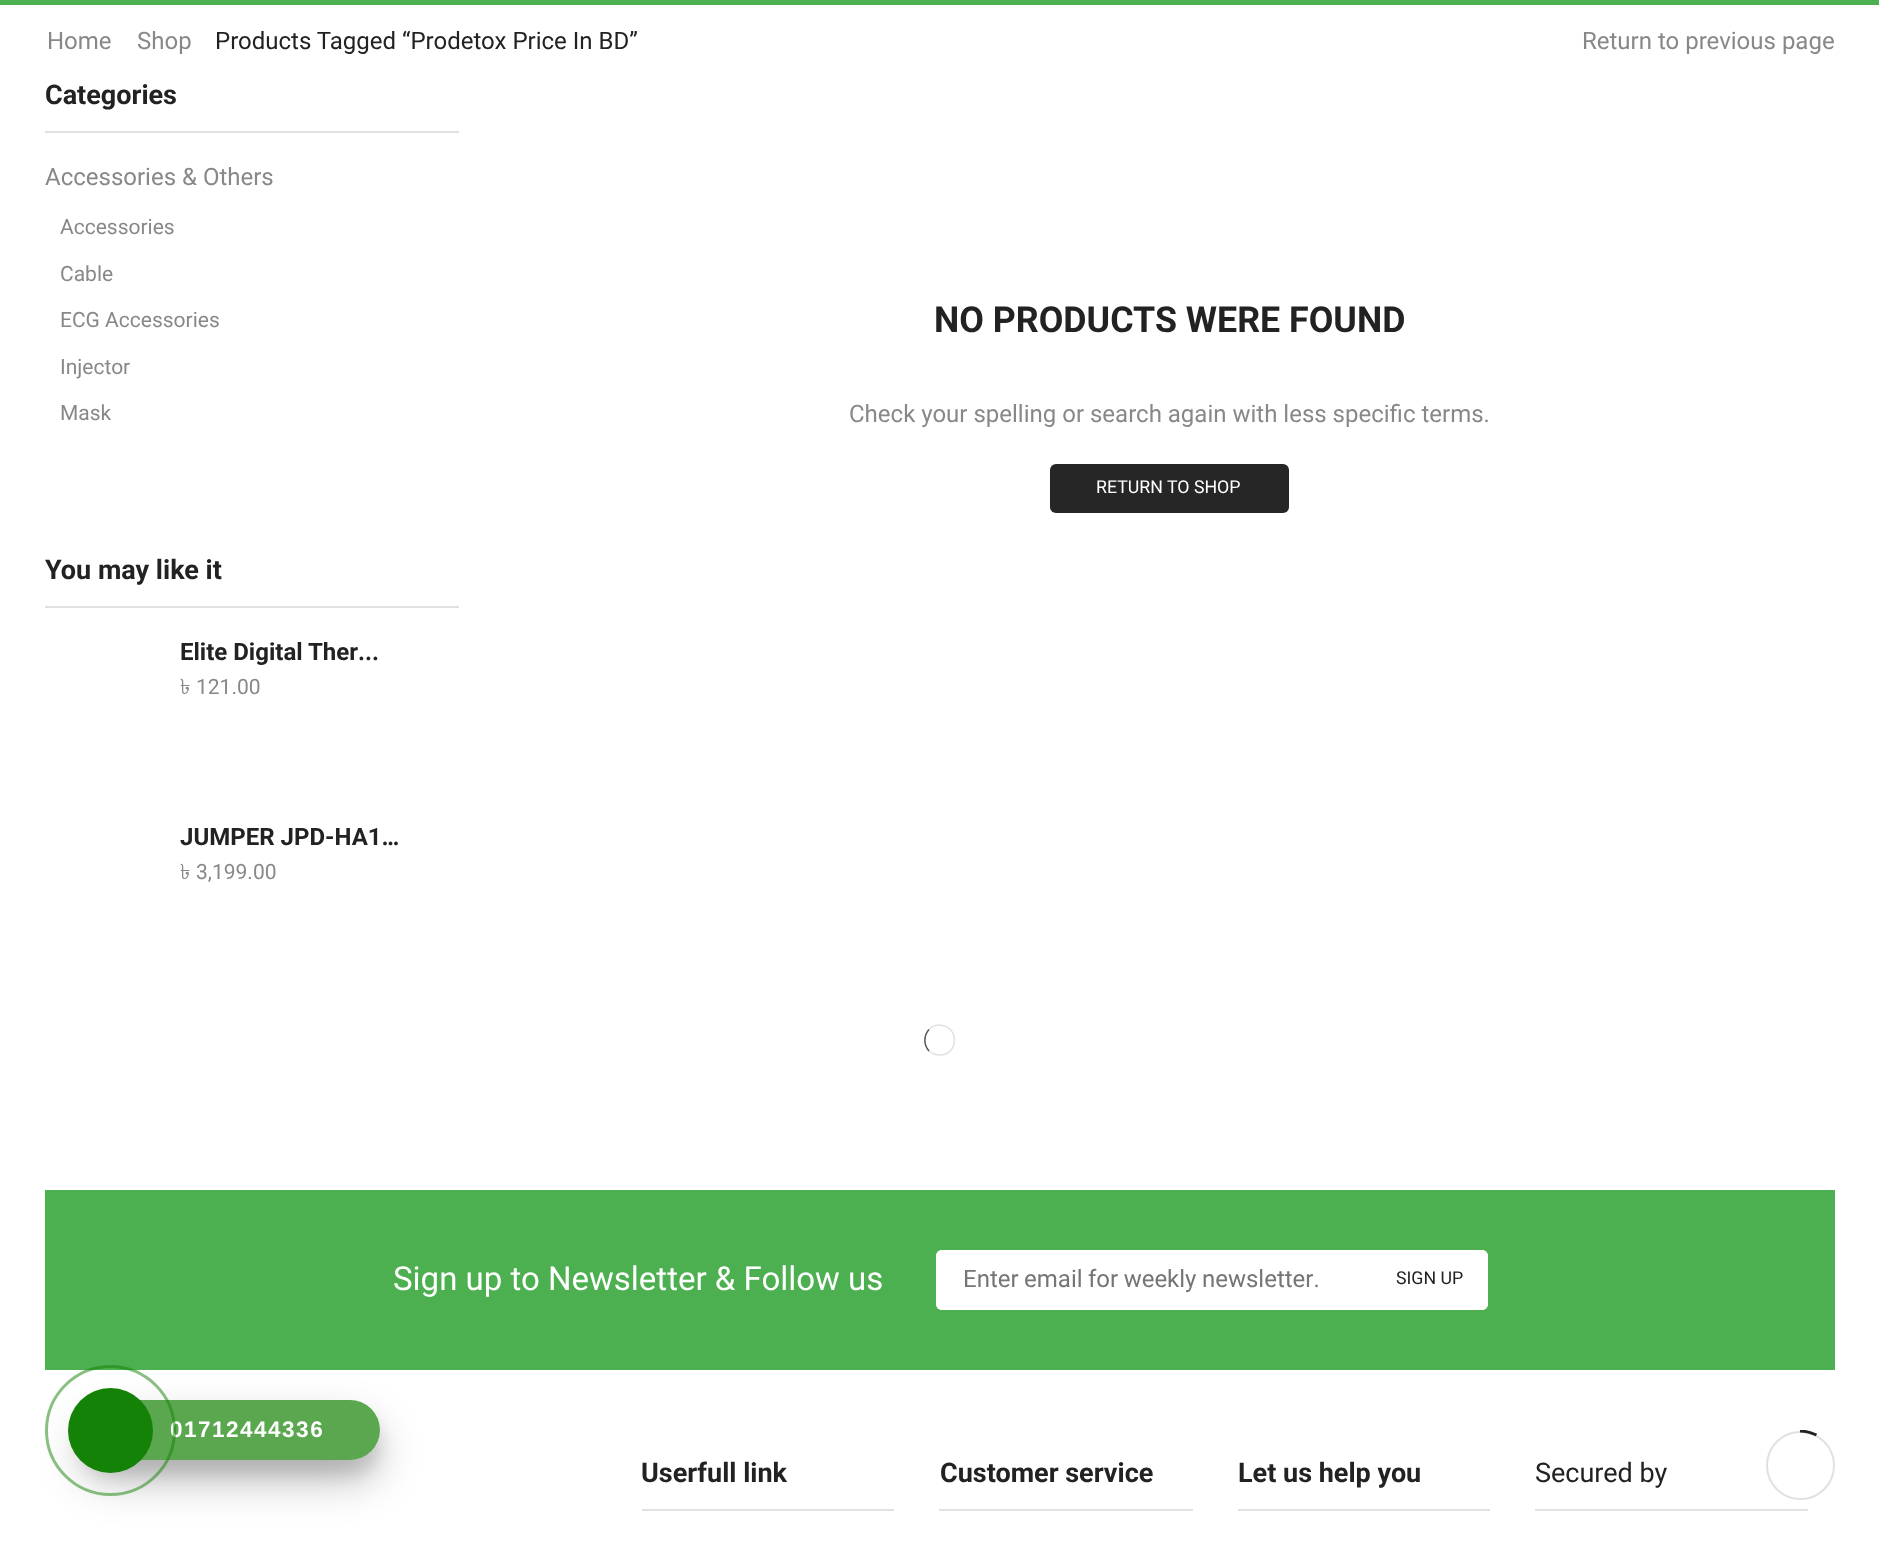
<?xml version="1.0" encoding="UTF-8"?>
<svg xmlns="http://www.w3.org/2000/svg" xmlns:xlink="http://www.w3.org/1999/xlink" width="1879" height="1544">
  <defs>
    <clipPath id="clip1"><rect x="1764" y="1430" width="72" height="72" /></clipPath>
    <clipPath id="clip2"><path d="M 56 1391 h 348 v 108 h -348 z m 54 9 h 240 c 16.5 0 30 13.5 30 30 c 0 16.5 -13.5 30 -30 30 h -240 c -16.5 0 -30 -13.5 -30 -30 c 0 -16.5 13.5 -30 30 -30 z" clip-rule="evenodd" /></clipPath>
    <clipPath id="clip3"><path d="M 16 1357 h 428 v 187 h -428 z m 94 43 h 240 c 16.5 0 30 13.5 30 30 c 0 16.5 -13.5 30 -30 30 h -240 c -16.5 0 -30 -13.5 -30 -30 c 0 -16.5 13.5 -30 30 -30 z" clip-rule="evenodd" /></clipPath>
  </defs>
  <rect width="100%" height="100%" fill="#ffffff" />
  <rect width="1879" height="5" fill="#4caf50" />
  <rect x="45" y="131" width="414" height="2" fill="#e1e1e1" />
  <rect x="45" y="606" width="414" height="2" fill="#e1e1e1" />
  <rect x="1050" y="464" width="239" height="49" rx="6" fill="#262626" />
  <path d="M 929 1029.5 c 3.5 -3.5 9 -5 13.5 -4 c 17.5 3.5 15 29.5 -2.5 29.5 c -4 0 -8 -1.5 -11 -4" fill="none" stroke="#e1e1e1" stroke-width="1.5" />
  <path d="M 929 1051 c -5.5 -6 -5.5 -15.5 0 -21.5" fill="none" stroke="#555555" stroke-width="1.5" />
  <rect x="45" y="1190" width="1790" height="180" fill="#4caf50" />
  <rect x="936" y="1250" width="552" height="60" rx="6" fill="#ffffff" />
  <rect x="936" y="1250" width="438" height="60" rx="6" fill="#ffffff" />
  <rect x="1374" y="1250" width="114" height="60" rx="6" fill="#ffffff" />
  <rect x="642" y="1509" width="252" height="2" fill="#e1e1e1" />
  <rect x="939" y="1509" width="254" height="2" fill="#e1e1e1" />
  <rect x="1238" y="1509" width="252" height="2" fill="#e1e1e1" />
  <rect x="1535" y="1509" width="273" height="2" fill="#e1e1e1" />
  <circle cx="1800.5" cy="1465.5" r="33.5" fill="none" stroke="#e1e1e1" stroke-width="2" />
  <g clip-path="url(#clip1)">
    <path d="M 1800 1431 c 6 0 11.5 1.5 16.5 4" fill="none" stroke="#222222" stroke-width="2.8" />
  </g>
  <g clip-path="url(#clip2)">
    <rect x="80" y="1415" width="300" height="60" rx="30" fill="#000000" fill-opacity="0.1" filter="blur(7.5px)" />
  </g>
  <g clip-path="url(#clip3)">
    <rect x="80" y="1421" width="300" height="60" rx="30" fill="#000000" fill-opacity="0.25" filter="blur(21px)" />
  </g>
  <rect x="80" y="1400" width="300" height="60" rx="30" fill="#148206" fill-opacity="0.7" />
  <text x="47" y="49" style="font-family: Roboto; font-size: 24px; fill: #888888">Home</text>
  <text x="137" y="49" style="font-family: Roboto; font-size: 24px; fill: #888888">Shop</text>
  <text x="215" y="49" style="font-family: Roboto; font-size: 24px; fill: #222222">Products Tagged “Prodetox Price In BD”</text>
  <text x="1582" y="49" style="font-family: Roboto; font-size: 24px; fill: #888888">Return to previous page</text>
  <text x="45" y="104" style="font-family: Roboto; font-size: 27px; font-weight: bold; fill: #222222">Categories</text>
  <text x="45" y="185" style="font-family: Roboto; font-size: 24px; fill: #888888">Accessories &amp; Others</text>
  <text x="60" y="234" style="font-family: Roboto; font-size: 21px; fill: #888888">Accessories</text>
  <text x="60" y="281" style="font-family: Roboto; font-size: 21px; fill: #888888">Cable</text>
  <text x="60" y="327" style="font-family: Roboto; font-size: 21px; fill: #888888">ECG Accessories</text>
  <text x="60" y="374" style="font-family: Roboto; font-size: 21px; fill: #888888">Injector</text>
  <text x="60" y="420" style="font-family: Roboto; font-size: 21px; fill: #888888">Mask</text>
  <text x="45" y="579" style="font-family: Roboto; font-size: 27px; font-weight: bold; fill: #222222">You may like it</text>
  <text x="180" y="660" style="font-family: Roboto; font-size: 24px; font-weight: bold; fill: #222222">Elite Digital Ther...</text>
  <text x="180" y="694" style="font-family: Lohit Bengali; font-size: 21px; fill: #888888">৳</text>
  <text x="196" y="694" style="font-family: Roboto; font-size: 21px; fill: #888888">121.00</text>
  <text x="180" y="845" style="font-family: Roboto; font-size: 24px; font-weight: bold; fill: #222222">JUMPER JPD-HA1…</text>
  <text x="180" y="879" style="font-family: Lohit Bengali; font-size: 21px; fill: #888888">৳</text>
  <text x="196" y="879" style="font-family: Roboto; font-size: 21px; fill: #888888">3,199.00</text>
  <text x="934" y="332" style="font-family: Roboto; font-size: 35.75px; font-weight: bold; fill: #222222">NO PRODUCTS WERE FOUND</text>
  <text x="849" y="422" style="font-family: Roboto; font-size: 24px; fill: #888888">Check your spelling or search again with less specific terms.</text>
  <text x="1096" y="493" style="font-family: Roboto; font-size: 17.75px; fill: #ffffff">RETURN TO SHOP</text>
  <text x="393" y="1290" style="font-family: Roboto; font-size: 33px; fill: #ffffff">Sign up to Newsletter &amp; Follow us</text>
  <text x="963" y="1287" word-spacing="-0.5" style="font-family: Roboto; font-size: 24px; fill: #757575">Enter email for weekly newsletter.</text>
  <text x="1396" y="1284" style="font-family: Roboto; font-size: 17.75px; fill: #222222">SIGN UP</text>
  <text x="641" y="1482" style="font-family: Roboto; font-size: 27px; font-weight: bold; fill: #222222">Userfull link</text>
  <text x="940" y="1482" style="font-family: Roboto; font-size: 27px; font-weight: bold; fill: #222222">Customer service</text>
  <text x="1238" y="1482" style="font-family: Roboto; font-size: 27px; font-weight: bold; fill: #222222">Let us help you</text>
  <text x="1535" y="1482" style="font-family: Roboto; font-size: 27px; fill: #222222">Secured by</text>
  <text x="170" y="1437" style="font-family: Liberation Sans; font-size: 22.5px; font-weight: bold; letter-spacing: 1.5px; fill: #ffffff">01712444336</text>
  <circle cx="110.5" cy="1430.5" r="64" fill="none" stroke="#148206" stroke-opacity="0.5" stroke-width="3" />
  <circle cx="110.5" cy="1430.5" r="42.5" fill="#148206" />
</svg>
